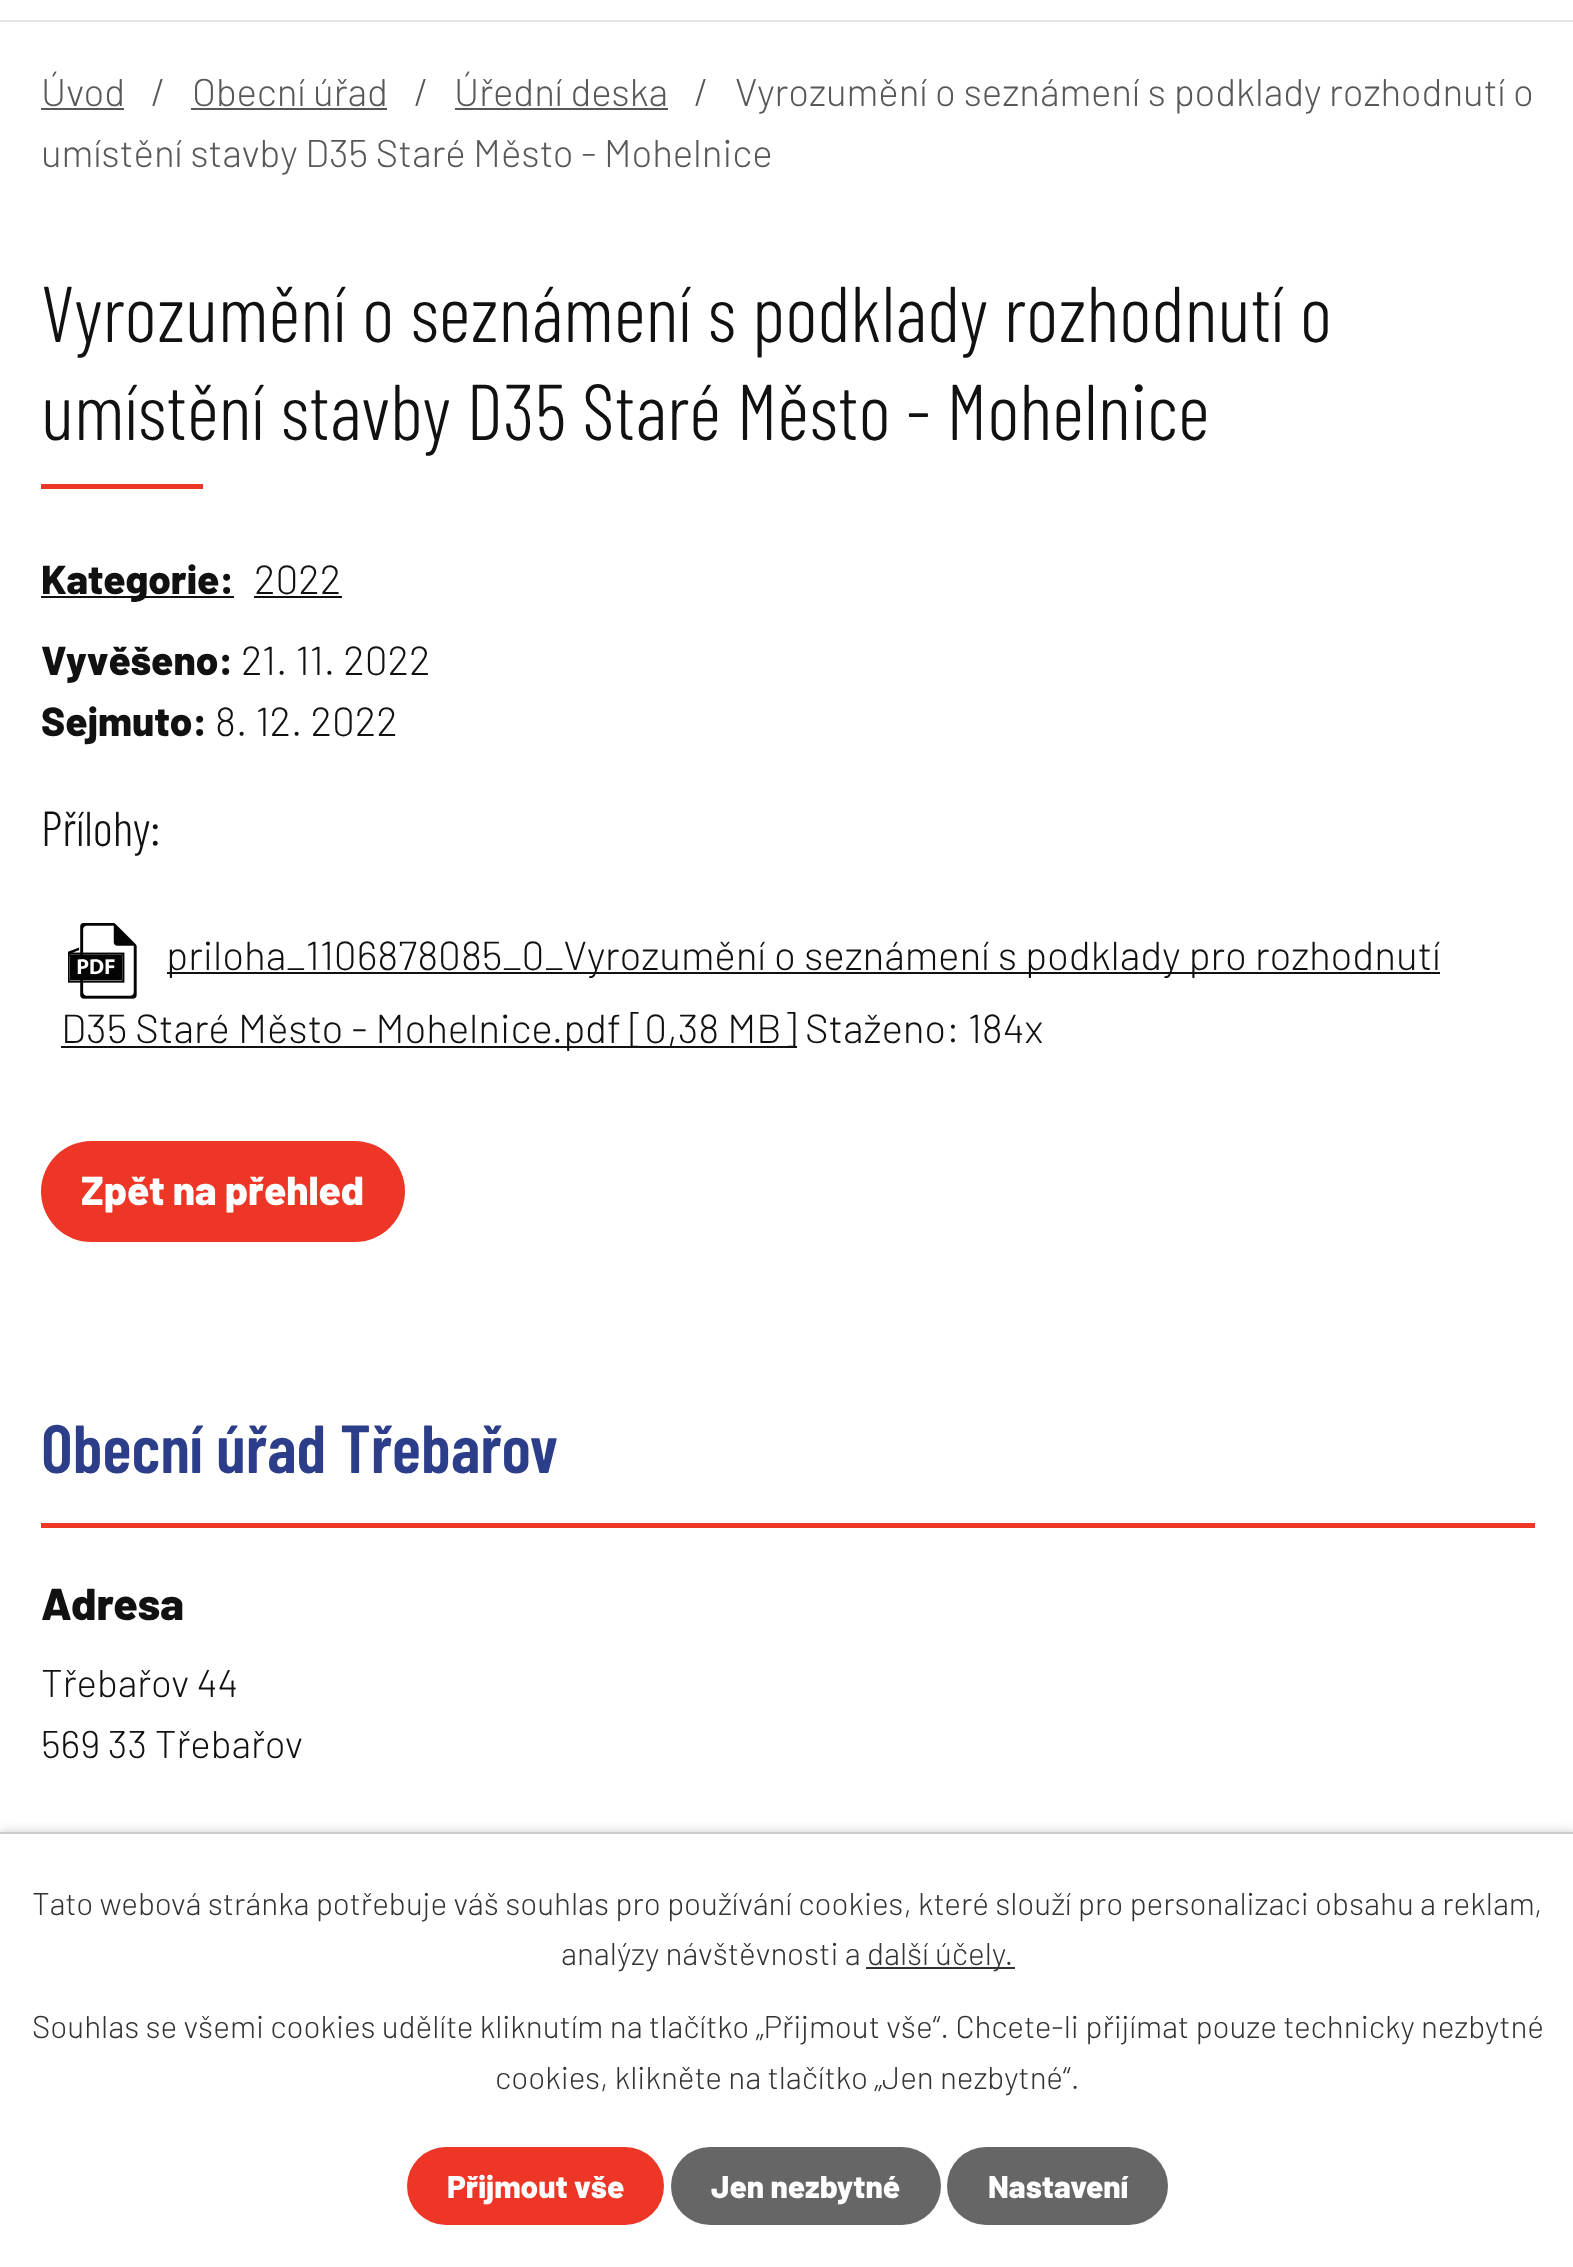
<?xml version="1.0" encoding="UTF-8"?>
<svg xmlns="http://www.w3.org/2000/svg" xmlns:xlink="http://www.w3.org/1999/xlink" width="1573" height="2267">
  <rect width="100%" height="100%" fill="#ffffff" />
  <rect y="20" width="1573" height="2" fill="#e2e6e5" />
  <rect x="41" y="108" width="83" height="2" fill="#585858" />
  <rect x="191" y="108" width="196" height="2" fill="#585858" />
  <rect x="455" y="108" width="213" height="2" fill="#585858" />
  <rect x="41" y="484" width="162" height="5" fill="#ed3625" />
  <rect x="41" y="596" width="193" height="2" fill="#111111" />
  <rect x="254" y="596" width="88" height="2" fill="#111111" />
  <image x="68" y="923" width="69" height="76" xlink:href="image1.png" />
  <rect x="167" y="972" width="1273" height="2" fill="#111111" />
  <rect x="61" y="1046" width="736" height="2" fill="#111111" />
  <rect x="41" y="1141" width="364" height="101" rx="50.5" fill="#ed3625" />
  <rect x="41" y="1523" width="1494" height="5" fill="#ed3625" />
  <rect y="1832" width="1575" height="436" fill="#000000" fill-opacity="0.2" filter="blur(5.5px)" />
  <rect y="1834" width="1573" height="433" fill="#ffffff" />
  <rect y="1832" width="1573" height="2" fill="#cccccc" />
  <rect x="866" y="1967" width="149" height="2" fill="#333333" />
  <rect x="407" y="2147" width="257" height="78" rx="39" fill="#ed3625" />
  <rect x="671" y="2147" width="270" height="78" rx="39" fill="#666666" />
  <rect x="947" y="2147" width="221" height="78" rx="39" fill="#666666" />
  <text x="41" y="106" style="font-family: Barlow; font-size: 38.5px; font-weight: 300; fill: #585858">Úvod</text>
  <text x="151" y="106" style="font-family: Barlow; font-size: 38.5px; font-weight: 300; fill: #585858">/</text>
  <text x="192" y="106" style="font-family: Barlow; font-size: 38.5px; font-weight: 300; fill: #585858">Obecní úřad</text>
  <text x="414" y="106" style="font-family: Barlow; font-size: 38.5px; font-weight: 300; fill: #585858">/</text>
  <text x="454" y="106" style="font-family: Barlow; font-size: 38.5px; font-weight: 300; fill: #585858">Úřední deska</text>
  <text x="694" y="106" style="font-family: Barlow; font-size: 38.5px; font-weight: 300; fill: #585858">/</text>
  <text x="735" y="106" style="font-family: Barlow; font-size: 38.5px; font-weight: 300; fill: #585858">Vyrozumění o seznámení s podklady rozhodnutí o</text>
  <text x="41" y="167" style="font-family: Barlow; font-size: 38.5px; font-weight: 300; fill: #585858">umístění stavby D35 Staré Město - Mohelnice</text>
  <text x="41" y="342" style="font-family: Barlow Condensed; font-size: 79px; font-weight: 300; fill: #111111">Vyrozumění o seznámení s podklady rozhodnutí o</text>
  <text x="41" y="440" style="font-family: Barlow Condensed; font-size: 79px; font-weight: 300; fill: #111111">umístění stavby D35 Staré Město - Mohelnice</text>
  <text x="41" y="594" style="font-family: Barlow; font-size: 40.5px; font-weight: 800; fill: #111111">Kategorie:</text>
  <text x="254" y="594" style="font-family: Barlow; font-size: 40.5px; font-weight: 300; fill: #111111">2022</text>
  <text x="41" y="675" style="font-family: Barlow; font-size: 40.5px; font-weight: 800; fill: #111111">Vyvěšeno:</text>
  <text x="241" y="675" style="font-family: Barlow; font-size: 40.5px; font-weight: 300; fill: #111111">21. 11. 2022</text>
  <text x="41" y="736" style="font-family: Barlow; font-size: 40.5px; font-weight: 800; fill: #111111">Sejmuto:</text>
  <text x="215" y="736" style="font-family: Barlow; font-size: 40.5px; font-weight: 300; fill: #111111">8. 12. 2022</text>
  <text x="41" y="846" style="font-family: Barlow Condensed; font-size: 49px; font-weight: 300; fill: #111111">Přílohy:</text>
  <text x="166" y="970" style="font-family: Barlow; font-size: 40.5px; font-weight: 300; fill: #111111">priloha_1106878085_0_Vyrozumění o seznámení s podklady pro rozhodnutí</text>
  <text x="61" y="1043" style="font-family: Barlow; font-size: 40.5px; font-weight: 300; fill: #111111">D35 Staré Město - Mohelnice.pdf [0,38 MB] Staženo: 184x</text>
  <text x="81" y="1205" style="font-family: Barlow; font-size: 40.5px; font-weight: 800; fill: #ffffff">Zpět na přehled</text>
  <text x="41" y="1473" style="font-family: Barlow Condensed; font-size: 68px; font-weight: 600; fill: #2c3d89">Obecní úřad Třebařov</text>
  <text x="41" y="1620" style="font-family: Barlow; font-size: 44.5px; font-weight: 800; fill: #111111">Adresa</text>
  <text x="41" y="1697" style="font-family: Barlow; font-size: 38.5px; font-weight: 300; fill: #111111">Třebařov 44</text>
  <text x="41" y="1758" style="font-family: Barlow; font-size: 38.5px; font-weight: 300; fill: #111111">569 33 Třebařov</text>
  <text x="32" y="1915" style="font-family: Barlow; font-size: 31.5px; font-weight: 300; fill: #333333">Tato webová stránka potřebuje váš souhlas pro používání cookies, které slouží pro personalizaci obsahu a reklam,</text>
  <text x="561" y="1965" style="font-family: Barlow; font-size: 31.5px; font-weight: 300; fill: #333333">analýzy návštěvnosti a</text>
  <text x="867" y="1965" style="font-family: Barlow; font-size: 31.5px; font-weight: 300; fill: #333333">další účely.</text>
  <text x="32" y="2038" style="font-family: Barlow; font-size: 31.5px; font-weight: 300; fill: #333333">Souhlas se všemi cookies udělíte kliknutím na tlačítko „Přijmout vše“. Chcete-li přijímat pouze technicky nezbytné</text>
  <text x="495" y="2089" style="font-family: Barlow; font-size: 31.5px; font-weight: 300; fill: #333333">cookies, klikněte na tlačítko „Jen nezbytné“.</text>
  <text x="447" y="2198" style="font-family: Barlow; font-size: 31.5px; font-weight: 800; fill: #ffffff">Přijmout vše</text>
  <text x="711" y="2198" style="font-family: Barlow; font-size: 31.5px; font-weight: 800; fill: #ffffff">Jen nezbytné</text>
  <text x="988" y="2198" style="font-family: Barlow; font-size: 31.5px; font-weight: 800; fill: #ffffff">Nastavení</text>
</svg>
